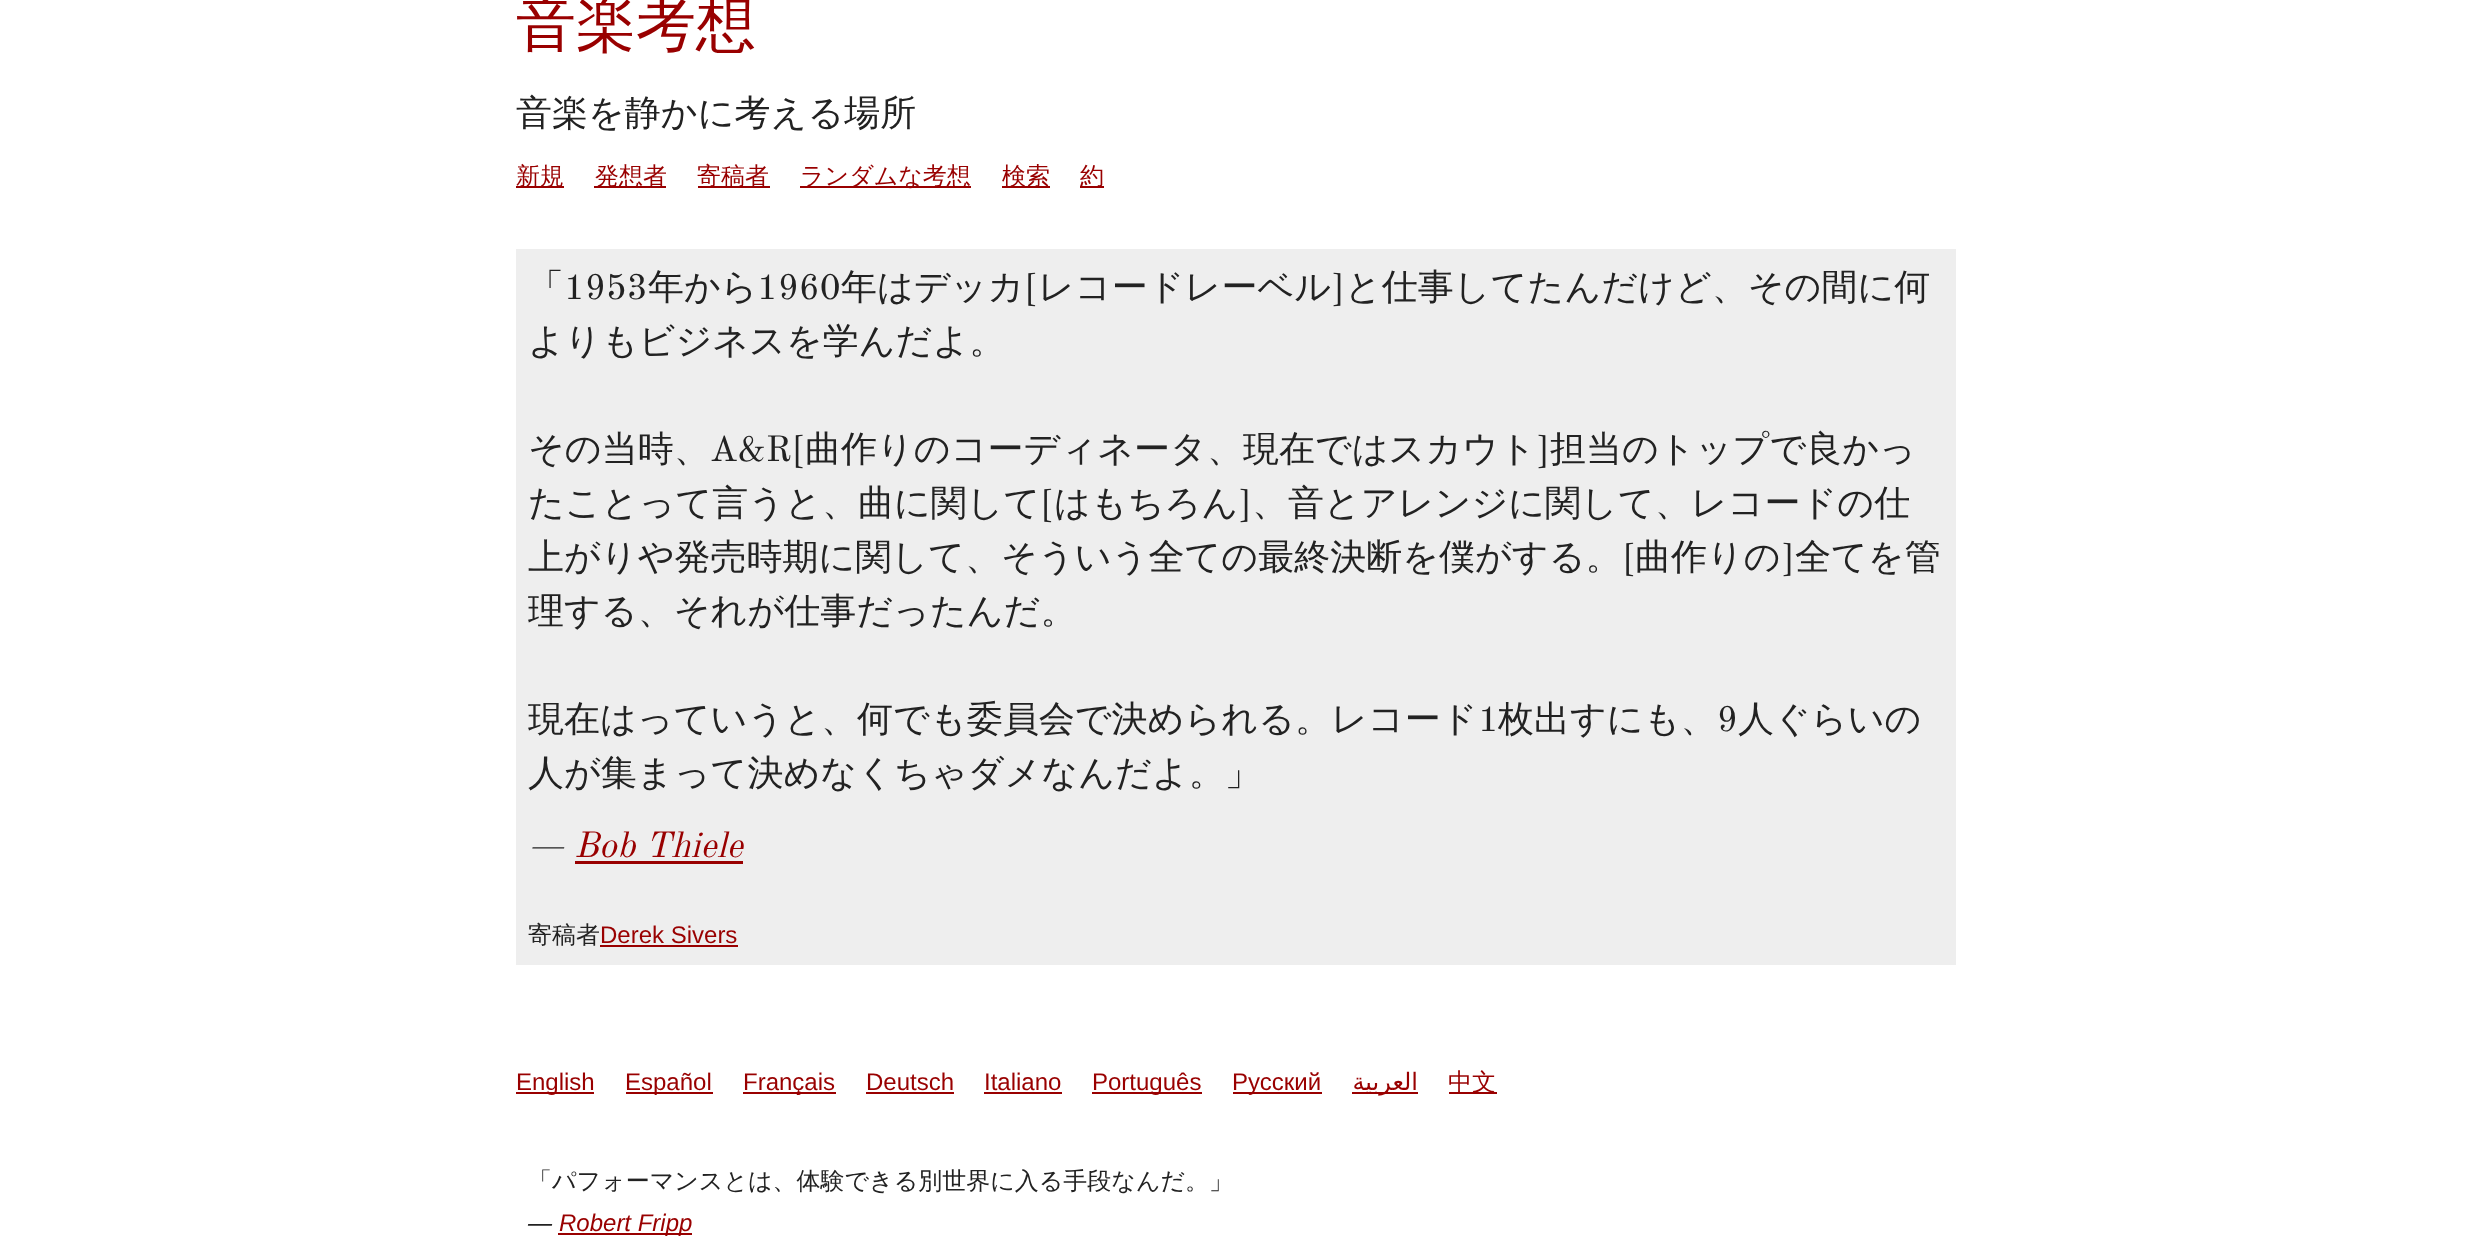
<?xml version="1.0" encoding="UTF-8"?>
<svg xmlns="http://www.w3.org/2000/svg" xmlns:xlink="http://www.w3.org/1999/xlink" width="2472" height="1240">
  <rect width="100%" height="100%" fill="#ffffff" />
  <rect x="516" y="186" width="48" height="2" fill="#990000" />
  <rect x="594" y="186" width="72" height="2" fill="#990000" />
  <rect x="698" y="186" width="72" height="2" fill="#990000" />
  <rect x="800" y="186" width="171" height="2" fill="#990000" />
  <rect x="1002" y="186" width="48" height="2" fill="#990000" />
  <rect x="1080" y="186" width="24" height="2" fill="#990000" />
  <rect x="516" y="249" width="1440" height="716" fill="#eeeeee" />
  <rect x="575" y="861" width="168" height="3" fill="#990000" />
  <rect x="600" y="945" width="138" height="2" fill="#990000" />
  <rect x="516" y="1092" width="78" height="2" fill="#990000" />
  <rect x="626" y="1092" width="87" height="2" fill="#990000" />
  <rect x="743" y="1092" width="93" height="2" fill="#990000" />
  <rect x="866" y="1092" width="88" height="2" fill="#990000" />
  <rect x="984" y="1092" width="78" height="2" fill="#990000" />
  <rect x="1092" y="1092" width="110" height="2" fill="#990000" />
  <rect x="1233" y="1092" width="89" height="2" fill="#990000" />
  <rect x="1352" y="1092" width="66" height="2" fill="#990000" />
  <rect x="1449" y="1092" width="48" height="2" fill="#990000" />
  <rect x="558" y="1233" width="134" height="2" fill="#990000" />
  <text x="516" y="45" style="font-family: WenQuanYi Zen Hei; font-size: 60px; font-weight: 500; fill: #990000">音楽考想</text>
  <text x="516" y="125" style="font-family: WenQuanYi Zen Hei; font-size: 36px; font-weight: 500; fill: #222222">音楽を静かに考える場所</text>
  <text x="516" y="184" style="font-family: WenQuanYi Zen Hei; font-size: 24px; font-weight: 500; fill: #990000">新規</text>
  <text x="595" y="184" style="font-family: WenQuanYi Zen Hei; font-size: 24px; font-weight: 500; fill: #990000">発想者</text>
  <text x="697" y="184" style="font-family: WenQuanYi Zen Hei; font-size: 24px; font-weight: 500; fill: #990000">寄稿者</text>
  <text x="800" y="184" style="font-family: WenQuanYi Zen Hei; font-size: 24px; font-weight: 500; fill: #990000">ランダムな考想</text>
  <text x="1002" y="184" style="font-family: WenQuanYi Zen Hei; font-size: 24px; font-weight: 500; fill: #990000">検索</text>
  <text x="1080" y="184" style="font-family: WenQuanYi Zen Hei; font-size: 24px; font-weight: 500; fill: #990000">約</text>
  <text x="528" y="299" style="font-family: WenQuanYi Zen Hei; font-size: 36px; font-weight: 500; fill: #222222">「</text>
  <text x="564" y="299" style="font-family: Old Standard TT; font-size: 36px; fill: #222222">1953</text>
  <text x="648" y="299" style="font-family: WenQuanYi Zen Hei; font-size: 36px; font-weight: 500; fill: #222222">年から</text>
  <text x="757" y="299" style="font-family: Old Standard TT; font-size: 36px; fill: #222222">1960</text>
  <text x="841" y="299" style="font-family: WenQuanYi Zen Hei; font-size: 36px; font-weight: 500; fill: #222222">年はデッカ</text>
  <text x="1024" y="299" style="font-family: Old Standard TT; font-size: 36px; fill: #222222">[</text>
  <text x="1038" y="299" style="font-family: WenQuanYi Zen Hei; font-size: 36px; font-weight: 500; fill: #222222">レコードレーベル</text>
  <text x="1331" y="299" style="font-family: Old Standard TT; font-size: 36px; fill: #222222">]</text>
  <text x="1345" y="299" style="font-family: WenQuanYi Zen Hei; font-size: 36px; font-weight: 500; fill: #222222">と仕事してたんだけど、その間に何</text>
  <text x="528" y="353" style="font-family: WenQuanYi Zen Hei; font-size: 36px; font-weight: 500; fill: #222222">よりもビジネスを学んだよ。</text>
  <text x="528" y="461" style="font-family: WenQuanYi Zen Hei; font-size: 36px; font-weight: 500; fill: #222222">その当時、</text>
  <text x="710" y="461" style="font-family: Old Standard TT; font-size: 36px; fill: #222222">A&amp;R[</text>
  <text x="805" y="461" style="font-family: WenQuanYi Zen Hei; font-size: 36px; font-weight: 500; fill: #222222">曲作りのコーディネータ、現在ではスカウト</text>
  <text x="1536" y="461" style="font-family: Old Standard TT; font-size: 36px; fill: #222222">]</text>
  <text x="1550" y="461" style="font-family: WenQuanYi Zen Hei; font-size: 36px; font-weight: 500; fill: #222222">担当のトップで良かっ</text>
  <text x="528" y="515" style="font-family: WenQuanYi Zen Hei; font-size: 36px; font-weight: 500; fill: #222222">たことって言うと、曲に関して</text>
  <text x="1040" y="515" style="font-family: Old Standard TT; font-size: 36px; fill: #222222">[</text>
  <text x="1054" y="515" style="font-family: WenQuanYi Zen Hei; font-size: 36px; font-weight: 500; fill: #222222">はもちろん</text>
  <text x="1238" y="515" style="font-family: Old Standard TT; font-size: 36px; fill: #222222">]</text>
  <text x="1252" y="515" style="font-family: WenQuanYi Zen Hei; font-size: 36px; font-weight: 500; fill: #222222">、音とアレンジに関して、レコードの仕</text>
  <text x="528" y="569" style="font-family: WenQuanYi Zen Hei; font-size: 36px; font-weight: 500; fill: #222222">上がりや発売時期に関して、そういう全ての最終決断を僕がする。</text>
  <text x="1622" y="569" style="font-family: Old Standard TT; font-size: 36px; fill: #222222">[</text>
  <text x="1635" y="569" style="font-family: WenQuanYi Zen Hei; font-size: 36px; font-weight: 500; fill: #222222">曲作りの</text>
  <text x="1781" y="569" style="font-family: Old Standard TT; font-size: 36px; fill: #222222">]</text>
  <text x="1795" y="569" style="font-family: WenQuanYi Zen Hei; font-size: 36px; font-weight: 500; fill: #222222">全てを管</text>
  <text x="528" y="623" style="font-family: WenQuanYi Zen Hei; font-size: 36px; font-weight: 500; fill: #222222">理する、それが仕事だったんだ。</text>
  <text x="528" y="731" style="font-family: WenQuanYi Zen Hei; font-size: 36px; font-weight: 500; fill: #222222">現在はっていうと、何でも委員会で決められる。レコード</text>
  <text x="1478" y="731" style="font-family: Old Standard TT; font-size: 36px; fill: #222222">1</text>
  <text x="1498" y="731" style="font-family: WenQuanYi Zen Hei; font-size: 36px; font-weight: 500; fill: #222222">枚出すにも、</text>
  <text x="1717" y="731" style="font-family: Old Standard TT; font-size: 36px; fill: #222222">9</text>
  <text x="1738" y="731" style="font-family: WenQuanYi Zen Hei; font-size: 36px; font-weight: 500; fill: #222222">人ぐらいの</text>
  <text x="528" y="785" style="font-family: WenQuanYi Zen Hei; font-size: 36px; font-weight: 500; fill: #222222">人が集まって決めなくちゃダメなんだよ。」</text>
  <text x="528" y="857" style="font-family: Old Standard TT; font-size: 36px; font-style: italic; fill: #222222">—</text>
  <text x="574" y="857" style="font-family: Old Standard TT; font-size: 36px; font-style: italic; fill: #990000">Bob Thiele</text>
  <text x="528" y="943" style="font-family: WenQuanYi Zen Hei; font-size: 24px; font-weight: 500; fill: #222222">寄稿者</text>
  <text x="600" y="943" style="font-family: Liberation Sans; font-size: 24px; fill: #990000">Derek Sivers</text>
  <text x="516" y="1090" style="font-family: Liberation Sans; font-size: 24px; fill: #990000">English</text>
  <text x="625" y="1090" style="font-family: Liberation Sans; font-size: 24px; fill: #990000">Español</text>
  <text x="743" y="1090" style="font-family: Liberation Sans; font-size: 24px; fill: #990000">Français</text>
  <text x="866" y="1090" style="font-family: Liberation Sans; font-size: 24px; fill: #990000">Deutsch</text>
  <text x="984" y="1090" style="font-family: Liberation Sans; font-size: 24px; fill: #990000">Italiano</text>
  <text x="1092" y="1090" style="font-family: Liberation Sans; font-size: 24px; fill: #990000">Português</text>
  <text x="1232" y="1090" style="font-family: Liberation Sans; font-size: 24px; fill: #990000">Русский</text>
  <text x="1418" y="1090" style="font-family: DejaVu Sans; font-size: 24px; direction: rtl; fill: #990000">العربية</text>
  <text x="1448" y="1090" style="font-family: WenQuanYi Zen Hei; font-size: 24px; font-weight: 500; fill: #990000">中文</text>
  <text x="528" y="1189" style="font-family: WenQuanYi Zen Hei; font-size: 24px; font-weight: 500; fill: #222222">「パフォーマンスとは、体験できる別世界に入る手段なんだ。」</text>
  <text x="528" y="1231" style="font-family: Liberation Sans; font-size: 24px; font-style: italic; fill: #222222">—</text>
  <text x="559" y="1231" style="font-family: Liberation Sans; font-size: 24px; font-style: italic; fill: #990000">Robert Fripp</text>
</svg>
